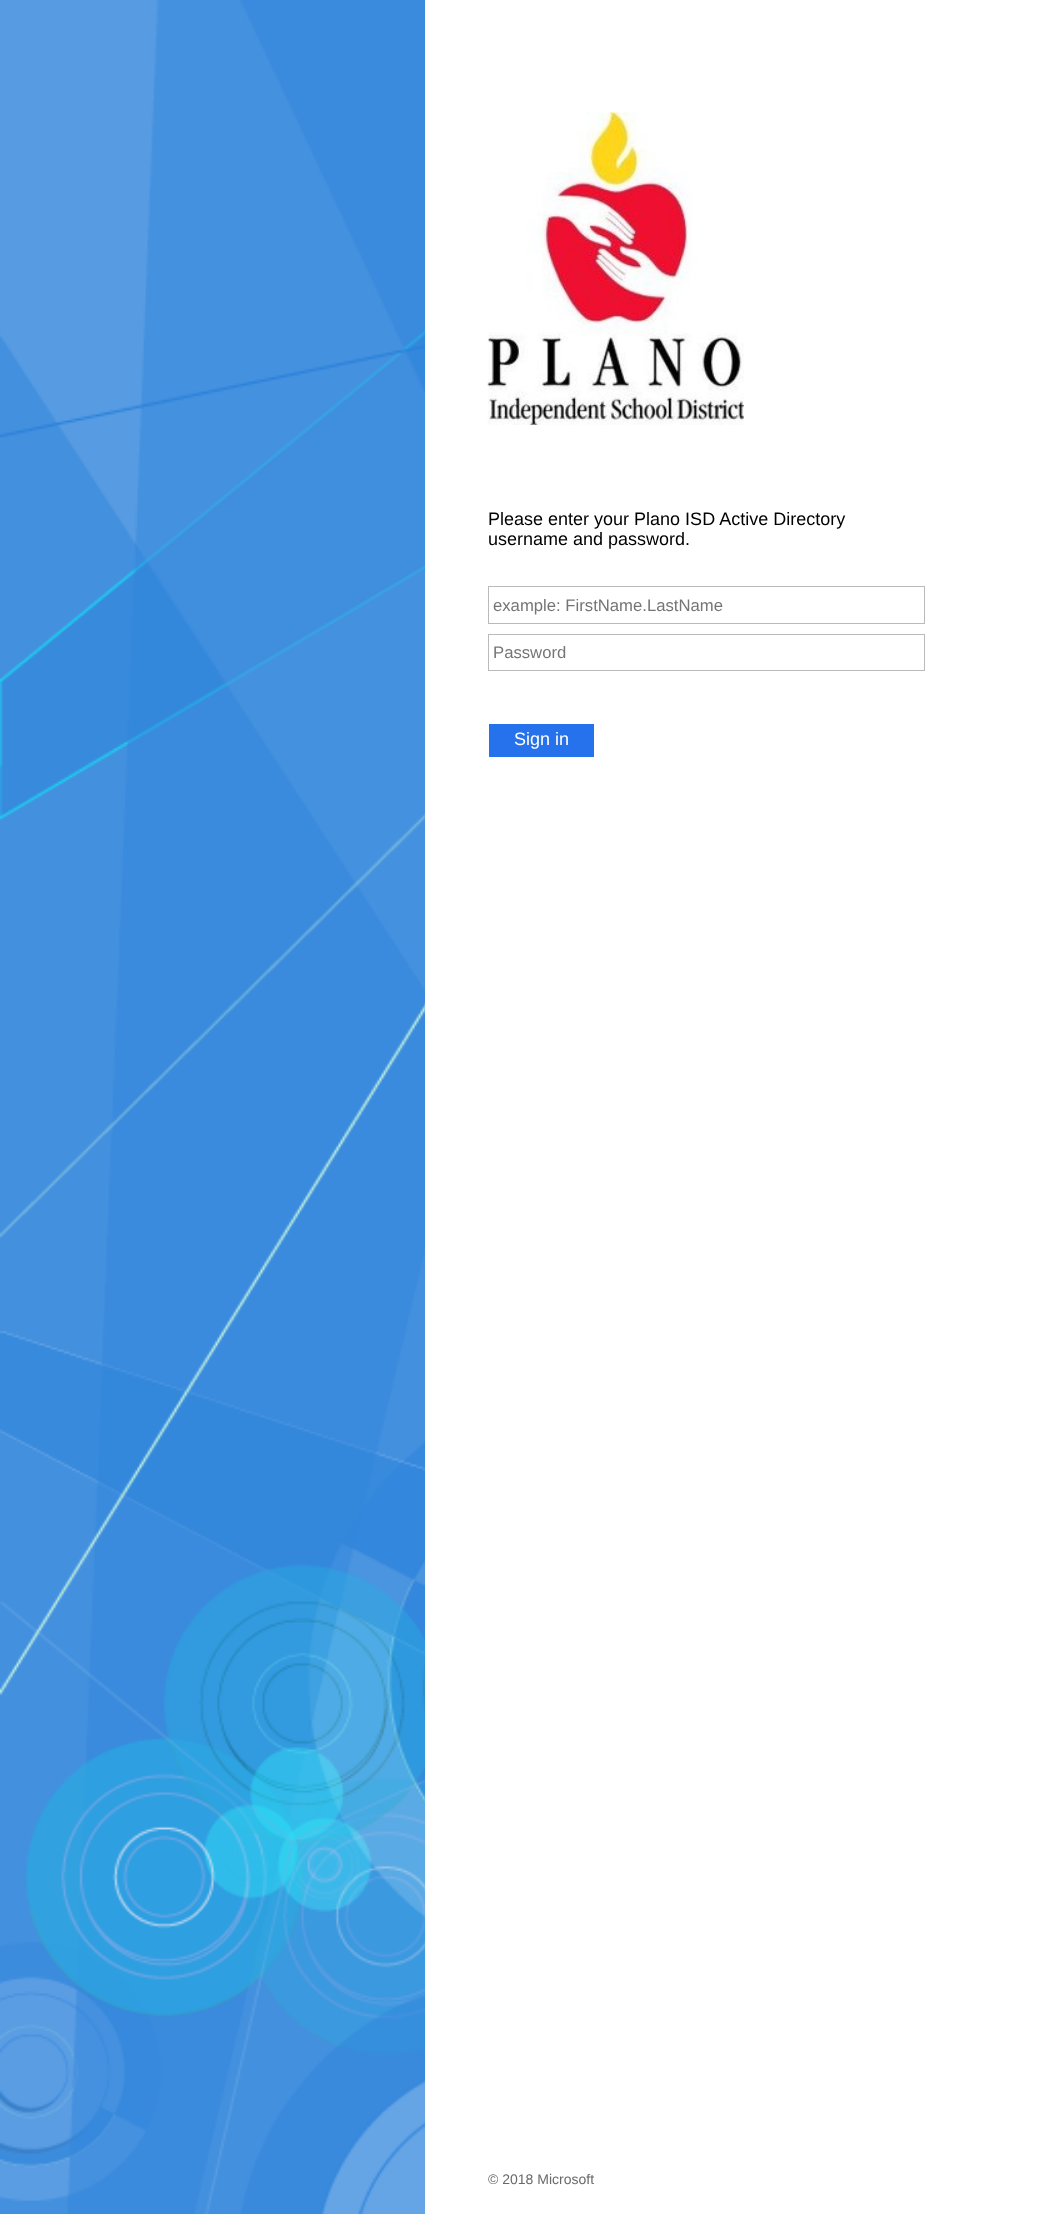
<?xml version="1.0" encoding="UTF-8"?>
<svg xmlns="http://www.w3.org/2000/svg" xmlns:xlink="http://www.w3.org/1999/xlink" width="1049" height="2214">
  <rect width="100%" height="100%" fill="#ffffff" />
  <image x="0" y="0" width="425" height="2214" xlink:href="image1.png" />
  <image x="487" y="112" width="257" height="313" xlink:href="image2.png" />
  <rect x="488.5" y="586.5" width="436" height="37" fill="none" stroke="#bababa" />
  <rect x="488.5" y="634.5" width="436" height="36" fill="none" stroke="#bababa" />
  <rect x="489" y="724" width="105" height="33" fill="#2672ec" />
  <text x="488" y="525" style="font-family: Liberation Sans; font-size: 18px; fill: #000000">Please enter your Plano ISD Active Directory</text>
  <text x="488" y="545" style="font-family: Liberation Sans; font-size: 18px; fill: #000000">username and password.</text>
  <text x="493" y="611" style="font-family: Liberation Sans; font-size: 16.7px; fill: #757575">example: FirstName.LastName</text>
  <text x="493" y="658" style="font-family: Liberation Sans; font-size: 16.7px; fill: #757575">Password</text>
  <text x="514" y="745" style="font-family: Liberation Sans; font-size: 18px; fill: #ffffff">Sign in</text>
  <text x="488" y="2184" style="font-family: Liberation Sans; font-size: 14px; fill: #696969">© 2018 Microsoft</text>
</svg>
